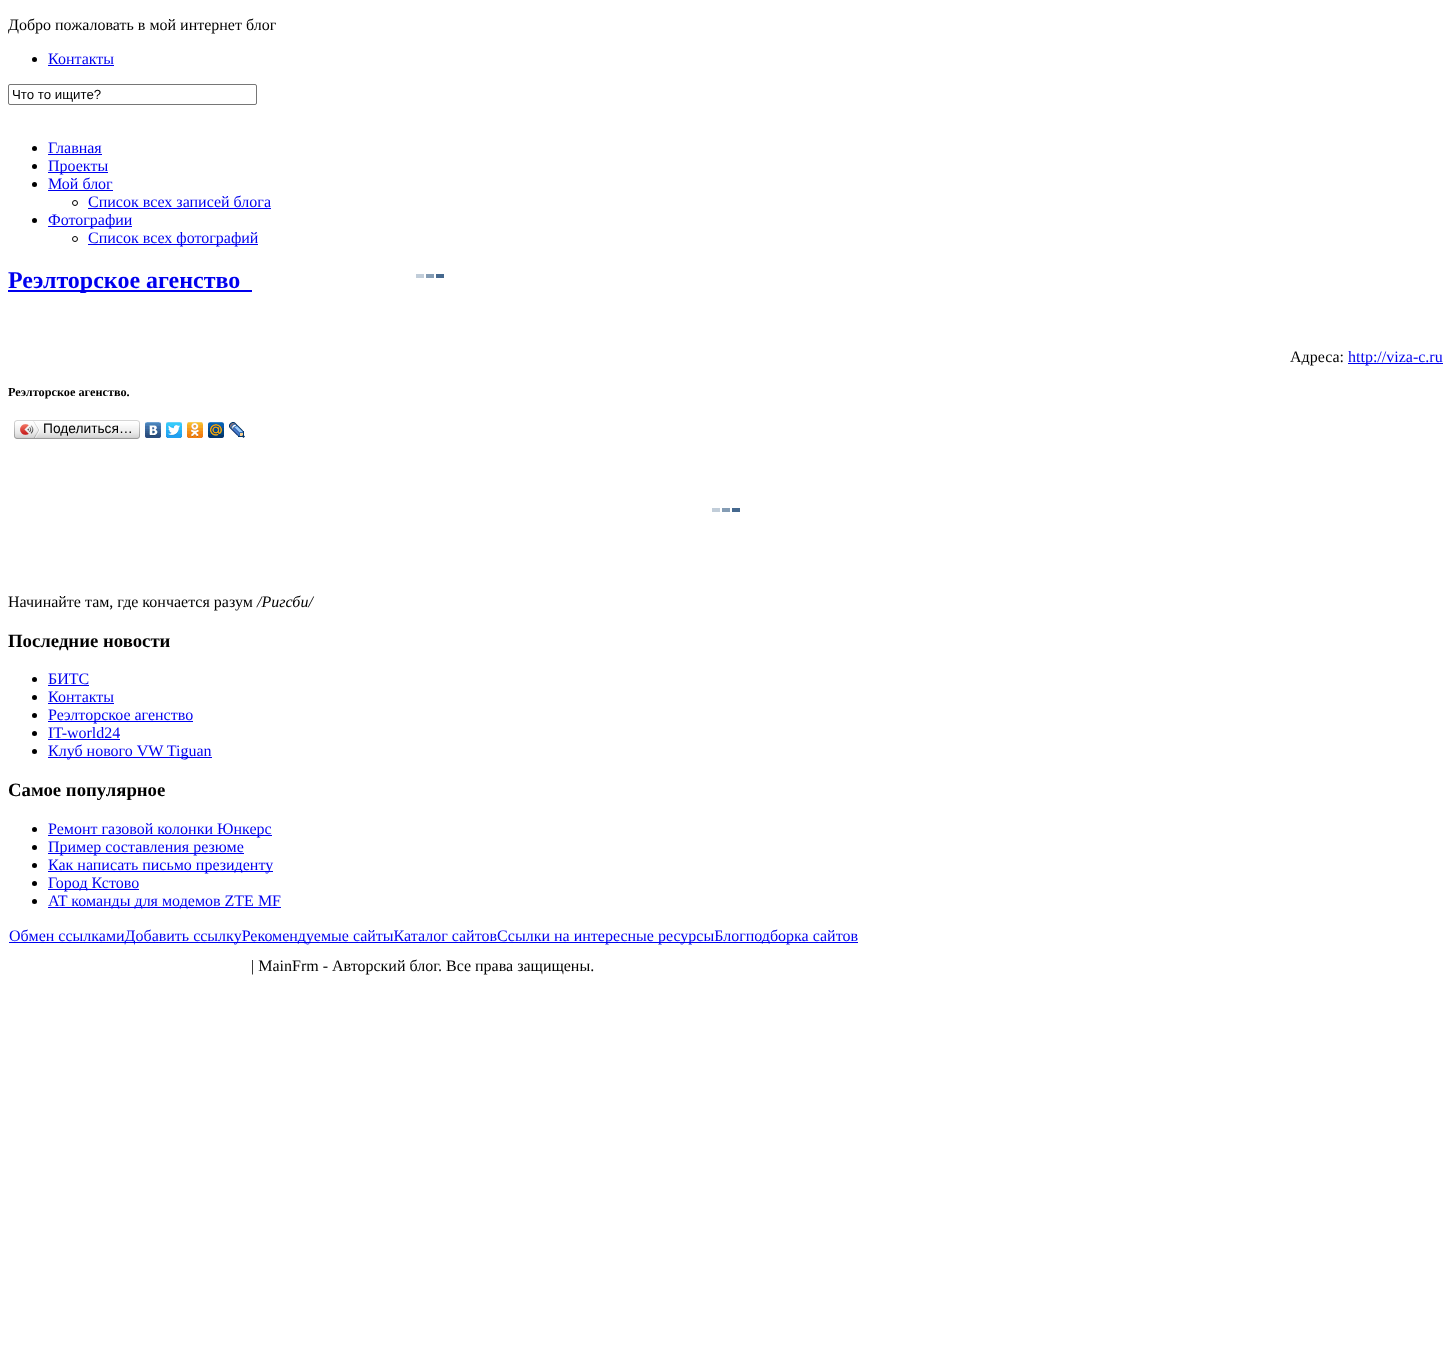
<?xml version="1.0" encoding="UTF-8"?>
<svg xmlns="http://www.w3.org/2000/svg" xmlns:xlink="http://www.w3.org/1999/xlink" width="1451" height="1350">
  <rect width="100%" height="100%" fill="#ffffff" />
  <circle cx="34.5" cy="59.5" r="2.5" fill="#000000" />
  <rect x="48" y="65" width="66" height="1" fill="#0000ee" />
  <rect x="8.5" y="84.5" width="248" height="20" rx="1.5" fill="none" stroke="#767676" />
  <circle cx="34.5" cy="148.5" r="2.5" fill="#000000" />
  <rect x="48" y="154" width="54" height="1" fill="#0000ee" />
  <circle cx="34.5" cy="166.5" r="2.5" fill="#000000" />
  <rect x="48" y="172" width="60" height="1" fill="#0000ee" />
  <circle cx="34.5" cy="184.5" r="2.5" fill="#000000" />
  <rect x="48" y="190" width="65" height="1" fill="#0000ee" />
  <circle cx="75" cy="203" r="2.5" fill="none" stroke="#000000" />
  <rect x="88" y="208" width="183" height="1" fill="#0000ee" />
  <circle cx="34.5" cy="220.5" r="2.5" fill="#000000" />
  <rect x="48" y="226" width="84" height="1" fill="#0000ee" />
  <circle cx="75" cy="239" r="2.5" fill="none" stroke="#000000" />
  <rect x="88" y="244" width="170" height="1" fill="#0000ee" />
  <rect x="8" y="290" width="244" height="2" fill="#0000ee" />
  <image x="416" y="274" width="28" height="4" xlink:href="image1.png" />
  <rect x="1348" y="363" width="95" height="1" fill="#0000ee" />
  <image x="17" y="420" width="120" height="19" xlink:href="image2.png" />
  <image x="14" y="420" width="3" height="19" xlink:href="image3.png" />
  <image x="20" y="421" width="20" height="17" xlink:href="image4.png" />
  <image x="137" y="420" width="3" height="19" xlink:href="image5.png" />
  <image x="145" y="422" width="16" height="16" xlink:href="image6.png" />
  <image x="166" y="422" width="16" height="16" xlink:href="image7.png" />
  <image x="187" y="422" width="16" height="16" xlink:href="image8.png" />
  <image x="208" y="422" width="16" height="16" xlink:href="image9.png" />
  <image x="229" y="422" width="16" height="16" xlink:href="image10.png" />
  <image x="712" y="508" width="28" height="4" xlink:href="image1.png" />
  <circle cx="34.5" cy="679.5" r="2.5" fill="#000000" />
  <rect x="48" y="685" width="41" height="1" fill="#0000ee" />
  <circle cx="34.5" cy="697.5" r="2.5" fill="#000000" />
  <rect x="48" y="703" width="66" height="1" fill="#0000ee" />
  <circle cx="34.5" cy="715.5" r="2.5" fill="#000000" />
  <rect x="48" y="721" width="145" height="1" fill="#0000ee" />
  <circle cx="34.5" cy="733.5" r="2.5" fill="#000000" />
  <rect x="48" y="739" width="72" height="1" fill="#0000ee" />
  <circle cx="34.5" cy="751.5" r="2.5" fill="#000000" />
  <rect x="48" y="757" width="164" height="1" fill="#0000ee" />
  <circle cx="34.5" cy="829.5" r="2.5" fill="#000000" />
  <rect x="48" y="835" width="224" height="1" fill="#0000ee" />
  <circle cx="34.5" cy="847.5" r="2.5" fill="#000000" />
  <rect x="48" y="853" width="196" height="1" fill="#0000ee" />
  <circle cx="34.5" cy="865.5" r="2.5" fill="#000000" />
  <rect x="48" y="871" width="225" height="1" fill="#0000ee" />
  <circle cx="34.5" cy="883.5" r="2.5" fill="#000000" />
  <rect x="48" y="889" width="91" height="1" fill="#0000ee" />
  <circle cx="34.5" cy="901.5" r="2.5" fill="#000000" />
  <rect x="48" y="907" width="233" height="1" fill="#0000ee" />
  <rect x="9" y="942" width="849" height="1" fill="#0000ee" />
  <text x="8" y="30" style="font-family: Liberation Serif; font-size: 16px; fill: #000000">Добро пожаловать в мой интернет блог</text>
  <text x="48" y="64" style="font-family: Liberation Serif; font-size: 16px; fill: #0000ee">Контакты</text>
  <text x="12" y="99" style="font-family: Liberation Sans; font-size: 13.25px; fill: #000000">Что то ищите?</text>
  <text x="48" y="153" style="font-family: Liberation Serif; font-size: 16px; fill: #0000ee">Главная</text>
  <text x="48" y="171" style="font-family: Liberation Serif; font-size: 16px; fill: #0000ee">Проекты</text>
  <text x="48" y="189" style="font-family: Liberation Serif; font-size: 16px; fill: #0000ee">Мой блог</text>
  <text x="88" y="207" style="font-family: Liberation Serif; font-size: 16px; fill: #0000ee">Список всех записей блога</text>
  <text x="48" y="225" style="font-family: Liberation Serif; font-size: 16px; fill: #0000ee">Фотографии</text>
  <text x="88" y="243" style="font-family: Liberation Serif; font-size: 16px; fill: #0000ee">Список всех фотографий</text>
  <text x="8" y="288" style="font-family: Liberation Serif; font-size: 24px; font-weight: bold; fill: #0000ee">Реэлторское агенство</text>
  <text x="1290" y="362" style="font-family: Liberation Serif; font-size: 16px; fill: #000000">Адреса:</text>
  <text x="1348" y="362" style="font-family: Liberation Serif; font-size: 16px; fill: #0000ee">http://viza-c.ru</text>
  <text x="8" y="396" style="font-family: Liberation Serif; font-size: 12.25px; font-weight: bold; fill: #000000">Реэлторское агенство.</text>
  <text x="43" y="433" style="font-family: Liberation Sans; font-size: 13.75px; fill: #000000">Поделиться…</text>
  <text x="8" y="607" style="font-family: Liberation Serif; font-size: 16px; fill: #000000">Начинайте там, где кончается разум</text>
  <text x="257" y="607" style="font-family: Liberation Serif; font-size: 16px; font-style: italic; fill: #000000">/Ригсби/</text>
  <text x="8" y="647" style="font-family: Liberation Serif; font-size: 18.75px; font-weight: bold; fill: #000000">Последние новости</text>
  <text x="48" y="684" style="font-family: Liberation Serif; font-size: 16px; fill: #0000ee">БИТС</text>
  <text x="48" y="702" style="font-family: Liberation Serif; font-size: 16px; fill: #0000ee">Контакты</text>
  <text x="48" y="720" style="font-family: Liberation Serif; font-size: 16px; fill: #0000ee">Реэлторское агенство</text>
  <text x="48" y="738" style="font-family: Liberation Serif; font-size: 16px; fill: #0000ee">IT-world24</text>
  <text x="48" y="756" style="font-family: Liberation Serif; font-size: 16px; fill: #0000ee">Клуб нового VW Tiguan</text>
  <text x="8" y="796" style="font-family: Liberation Serif; font-size: 18.75px; font-weight: bold; fill: #000000">Самое популярное</text>
  <text x="48" y="834" style="font-family: Liberation Serif; font-size: 16px; fill: #0000ee">Ремонт газовой колонки Юнкерс</text>
  <text x="48" y="852" style="font-family: Liberation Serif; font-size: 16px; fill: #0000ee">Пример составления резюме</text>
  <text x="48" y="870" style="font-family: Liberation Serif; font-size: 16px; fill: #0000ee">Как написать письмо президенту</text>
  <text x="48" y="888" style="font-family: Liberation Serif; font-size: 16px; fill: #0000ee">Город Кстово</text>
  <text x="48" y="906" style="font-family: Liberation Serif; font-size: 16px; fill: #0000ee">AT команды для модемов ZTE MF</text>
  <text x="9" y="941" style="font-family: Liberation Serif; font-size: 16px; fill: #0000ee">Обмен ссылкамиДобавить ссылкуРекомендуемые сайтыКаталог сайтовСсылки на интересные ресурсыБлогподборка сайтов</text>
  <text x="251" y="971" style="font-family: Liberation Serif; font-size: 16px; fill: #000000">| MainFrm - Авторский блог. Все права защищены.</text>
</svg>
